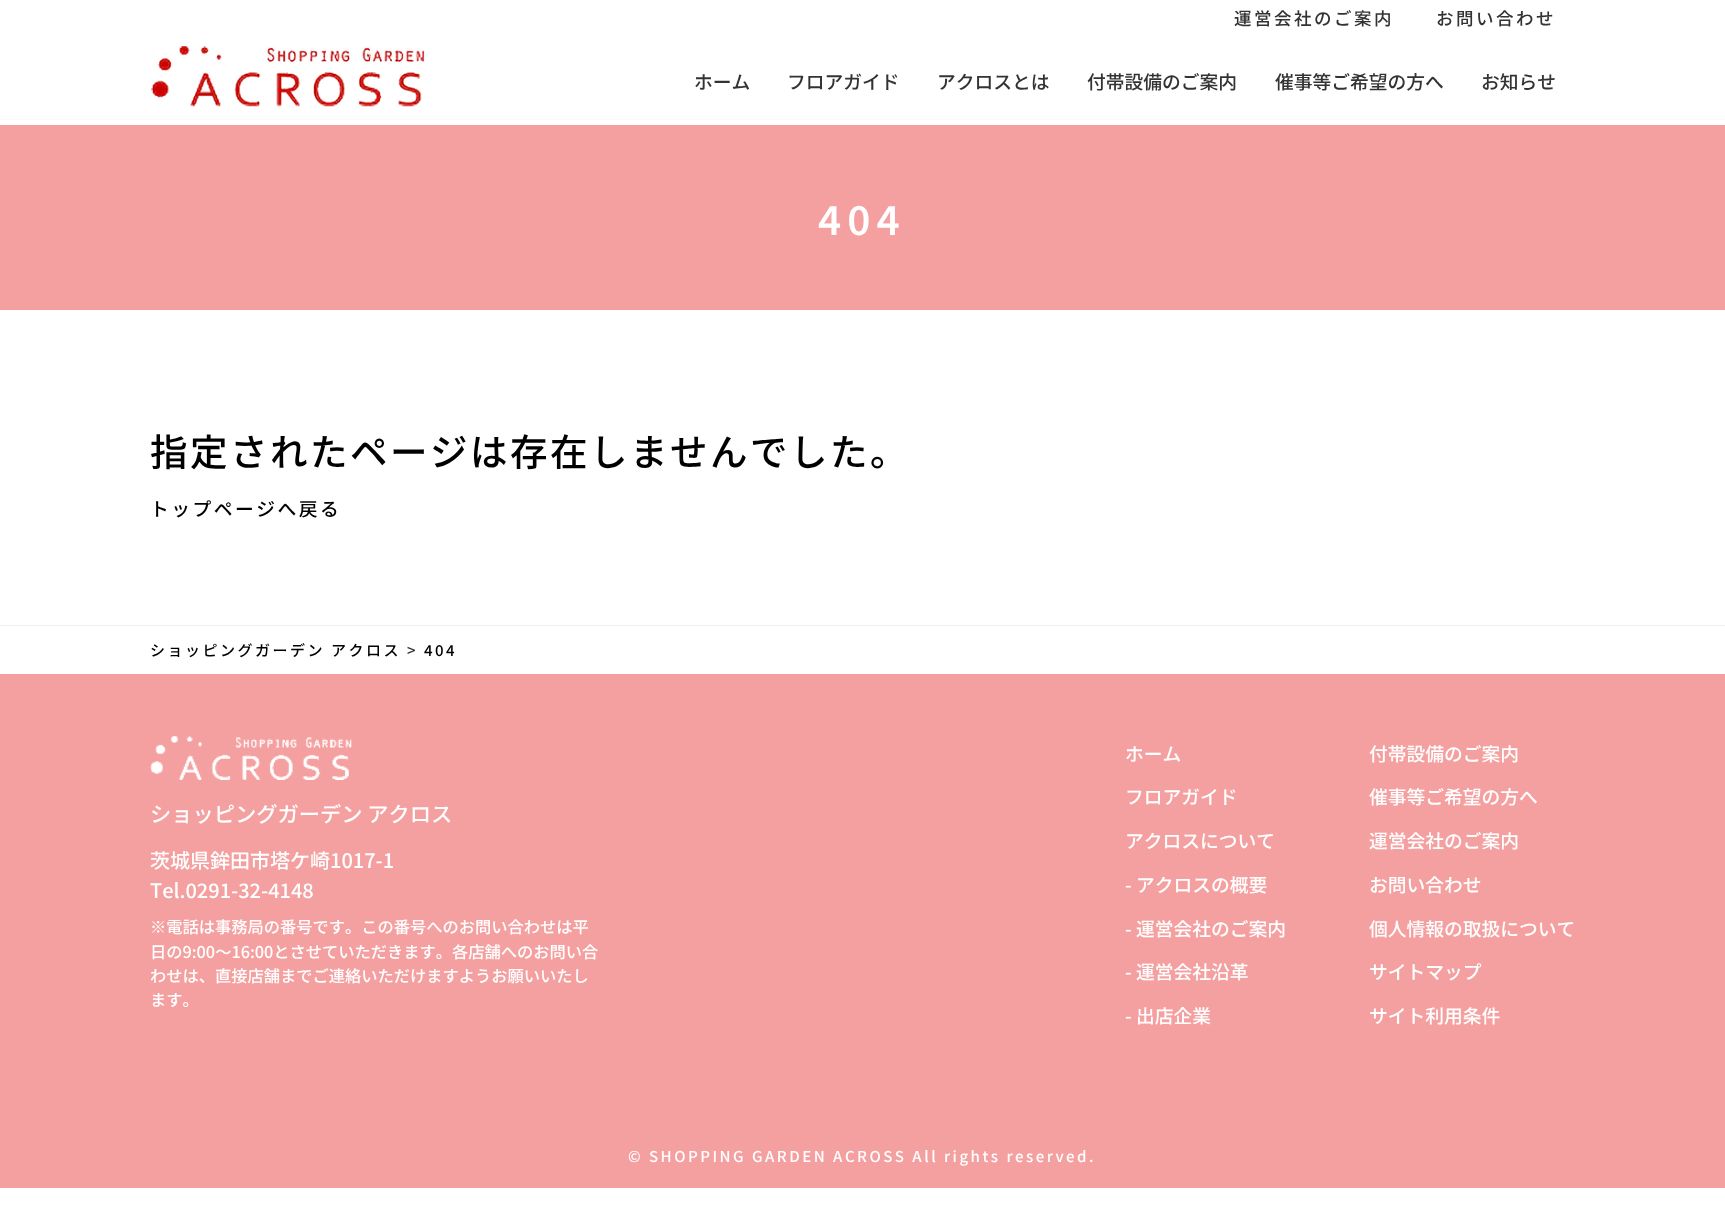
<?xml version="1.0" encoding="UTF-8"?>
<svg xmlns="http://www.w3.org/2000/svg" xmlns:xlink="http://www.w3.org/1999/xlink" width="1725" height="1228">
  <style>*{font-kerning:none!important;font-variant-ligatures:none!important}</style>
  <rect width="100%" height="100%" fill="#ffffff" />
  <rect y="119" width="1725" height="1" fill="#faf9f5" />
  <image x="151" y="46" width="274" height="61" xlink:href="image1.png" />
  <rect y="125" width="1725" height="185" fill="#f5a0a0" />
  <rect y="625" width="1725" height="1" fill="#eeeeee" />
  <rect y="674" width="1725" height="514" fill="#f5a0a0" />
  <image x="150" y="736" width="202" height="44" xlink:href="image2.png" />
  <text x="1234" y="25" style="font-family: Noto Sans JP; font-size: 17.5px; font-weight: 500; letter-spacing: 2.5px; fill: #333333">運営会社のご案内</text>
  <text x="1436" y="25" style="font-family: Noto Sans JP; font-size: 17.5px; font-weight: 500; letter-spacing: 2.5px; fill: #333333">お問い合わせ</text>
  <text x="694" y="89" style="font-family: Noto Sans JP; font-size: 18.75px; font-weight: 500; fill: #333333">ホーム</text>
  <text x="787" y="89" style="font-family: Noto Sans JP; font-size: 18.75px; font-weight: 500; fill: #333333">フロアガイド</text>
  <text x="937" y="89" style="font-family: Noto Sans JP; font-size: 18.75px; font-weight: 500; fill: #333333">アクロスとは</text>
  <text x="1087" y="89" style="font-family: Noto Sans JP; font-size: 18.75px; font-weight: 500; fill: #333333">付帯設備のご案内</text>
  <text x="1275" y="89" style="font-family: Noto Sans JP; font-size: 18.75px; font-weight: 500; fill: #333333">催事等ご希望の方へ</text>
  <text x="1481" y="89" style="font-family: Noto Sans JP; font-size: 18.75px; font-weight: 500; fill: #333333">お知らせ</text>
  <text x="818" y="235" style="font-family: Noto Sans JP; font-size: 40px; font-weight: 600; letter-spacing: 6px; fill: #ffffff">404</text>
  <text x="150" y="466" style="font-family: Noto Sans JP; font-size: 37.5px; font-weight: 500; letter-spacing: 2.5px; fill: #000000">指定されたページは存在しませんでした。</text>
  <text x="150" y="516" style="font-family: Noto Sans JP; font-size: 18.75px; font-weight: 500; letter-spacing: 2.5px; fill: #000000">トップページへ戻る</text>
  <text x="150" y="656" style="font-family: Noto Sans JP; font-size: 15px; font-weight: 500; letter-spacing: 2.5px; fill: #000000">ショッピングガーデン アクロス</text>
  <text x="407" y="656" style="font-family: Noto Sans JP; font-size: 15px; font-weight: 500; letter-spacing: 2.5px; fill: #333333">&gt;</text>
  <text x="424" y="656" style="font-family: Noto Sans JP; font-size: 15px; font-weight: 500; letter-spacing: 2.5px; fill: #000000">404</text>
  <text x="150" y="822" style="font-family: Noto Sans JP; font-size: 21.25px; font-weight: 500; fill: #ffffff">ショッピングガーデン アクロス</text>
  <text x="150" y="868" style="font-family: Noto Sans JP; font-size: 20px; font-weight: 500; fill: #ffffff">茨城県鉾田市塔ケ崎1017-1</text>
  <text x="150" y="898" style="font-family: Noto Sans JP; font-size: 20px; font-weight: 500; fill: #ffffff">Tel.0291-32-4148</text>
  <text x="150" y="933" style="font-family: Noto Sans JP; font-size: 16.25px; font-weight: 500; fill: #ffffff">※電話は事務局の番号です。この番号へのお問い合わせは平</text>
  <text x="150" y="958" style="font-family: Noto Sans JP; font-size: 16.25px; font-weight: 500; fill: #ffffff">日の9:00～16:00とさせていただきます。各店舗へのお問い合</text>
  <text x="150" y="982" style="font-family: Noto Sans JP; font-size: 16.25px; font-weight: 500; fill: #ffffff">わせは、直接店舗までご連絡いただけますようお願いいたし</text>
  <text x="150" y="1006" style="font-family: Noto Sans JP; font-size: 16.25px; font-weight: 500; fill: #ffffff">ます。</text>
  <text x="1125" y="761" style="font-family: Noto Sans JP; font-size: 18.75px; font-weight: 500; fill: #ffffff">ホーム</text>
  <text x="1125" y="804" style="font-family: Noto Sans JP; font-size: 18.75px; font-weight: 500; fill: #ffffff">フロアガイド</text>
  <text x="1125" y="848" style="font-family: Noto Sans JP; font-size: 18.75px; font-weight: 500; fill: #ffffff">アクロスについて</text>
  <text x="1125" y="892" style="font-family: Noto Sans JP; font-size: 18.75px; font-weight: 500; fill: #ffffff">- アクロスの概要</text>
  <text x="1125" y="936" style="font-family: Noto Sans JP; font-size: 18.75px; font-weight: 500; fill: #ffffff">- 運営会社のご案内</text>
  <text x="1125" y="979" style="font-family: Noto Sans JP; font-size: 18.75px; font-weight: 500; fill: #ffffff">- 運営会社沿革</text>
  <text x="1125" y="1023" style="font-family: Noto Sans JP; font-size: 18.75px; font-weight: 500; fill: #ffffff">- 出店企業</text>
  <text x="1369" y="761" style="font-family: Noto Sans JP; font-size: 18.75px; font-weight: 500; fill: #ffffff">付帯設備のご案内</text>
  <text x="1369" y="804" style="font-family: Noto Sans JP; font-size: 18.75px; font-weight: 500; fill: #ffffff">催事等ご希望の方へ</text>
  <text x="1369" y="848" style="font-family: Noto Sans JP; font-size: 18.75px; font-weight: 500; fill: #ffffff">運営会社のご案内</text>
  <text x="1369" y="892" style="font-family: Noto Sans JP; font-size: 18.75px; font-weight: 500; fill: #ffffff">お問い合わせ</text>
  <text x="1369" y="936" style="font-family: Noto Sans JP; font-size: 18.75px; font-weight: 500; fill: #ffffff">個人情報の取扱について</text>
  <text x="1369" y="979" style="font-family: Noto Sans JP; font-size: 18.75px; font-weight: 500; fill: #ffffff">サイトマップ</text>
  <text x="1369" y="1023" style="font-family: Noto Sans JP; font-size: 18.75px; font-weight: 500; fill: #ffffff">サイト利用条件</text>
  <text x="628" y="1162" style="font-family: Noto Sans JP; font-size: 15px; font-weight: 500; letter-spacing: 2.5px; fill: #ffffff">© SHOPPING GARDEN ACROSS All rights reserved.</text>
</svg>
